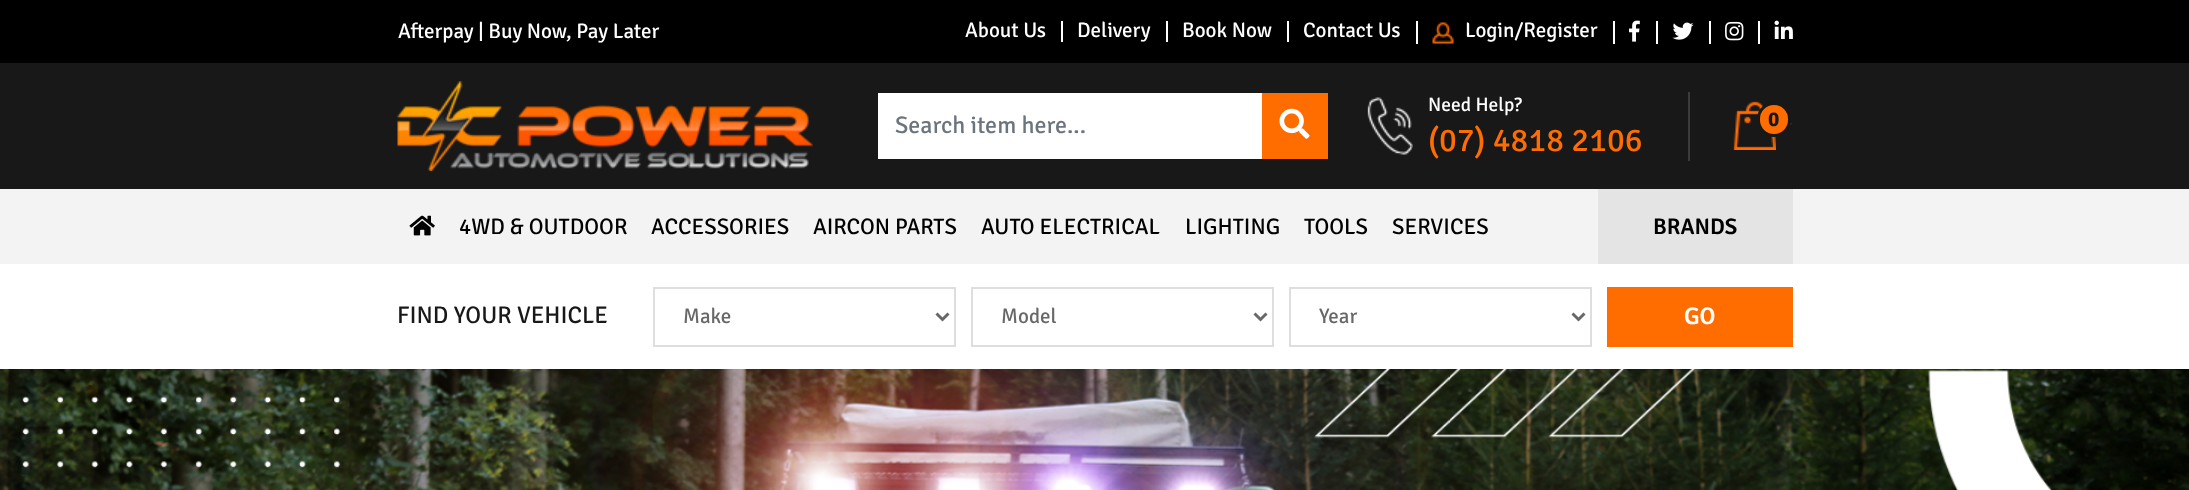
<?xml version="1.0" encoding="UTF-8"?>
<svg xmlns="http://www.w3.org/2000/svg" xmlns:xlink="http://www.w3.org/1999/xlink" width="2189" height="490">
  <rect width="100%" height="100%" fill="#ffffff" />
  <rect width="2189" height="63" fill="#000000" />
  <rect x="1061" y="21" width="2" height="21" fill="#ffffff" />
  <rect x="1166" y="21" width="2" height="21" fill="#ffffff" />
  <rect x="1287" y="21" width="2" height="21" fill="#ffffff" />
  <rect x="1416" y="21" width="2" height="23" fill="#ffffff" />
  <image x="1432" y="22" width="22" height="22" xlink:href="image1.png" />
  <rect x="1613" y="21" width="2" height="23" fill="#ffffff" />
  <image x="1629" y="20" width="11" height="22" xlink:href="image2.png" />
  <rect x="1656" y="21" width="2" height="23" fill="#ffffff" />
  <image x="1672" y="22" width="22" height="18" xlink:href="image3.png" />
  <rect x="1709" y="21" width="2" height="23" fill="#ffffff" />
  <image x="1725" y="21" width="19" height="20" xlink:href="image4.png" />
  <rect x="1758" y="21" width="2" height="23" fill="#ffffff" />
  <image x="1774" y="20" width="19" height="19" xlink:href="image5.png" />
  <rect y="63" width="2189" height="126" fill="#181818" />
  <image x="397" y="81" width="416" height="90" xlink:href="image6.png" />
  <rect x="878" y="93" width="384" height="66" fill="#ffffff" />
  <rect x="1262" y="93" width="66" height="66" fill="#ff6d01" />
  <image x="1279" y="108" width="31" height="31" xlink:href="image7.png" />
  <rect x="1688" y="92" width="2" height="69" fill="#3c3c3c" />
  <image x="1367" y="97" width="46" height="58" xlink:href="image8.png" />
  <image x="1733" y="101" width="43" height="49" xlink:href="image9.png" />
  <path d="M 1780.5 123 h 12 l -6 6 z" fill="#333333" />
  <rect x="1758.5" y="103.5" width="31" height="32" rx="15.5" fill="#ff6d01" stroke="#181818" stroke-width="3" />
  <rect y="189" width="2189" height="75" fill="#f3f3f3" />
  <image x="409" y="215" width="26" height="21" xlink:href="image10.png" />
  <rect x="1598" y="189" width="195" height="75" fill="#e4e4e4" />
  <rect x="654" y="288" width="301" height="58" fill="none" stroke="#dedede" stroke-width="2" />
  <path d="M 936.5 313.5 l 6 6 l 6 -6" fill="none" stroke="#686868" stroke-width="3" />
  <rect x="972" y="288" width="301" height="58" fill="none" stroke="#dedede" stroke-width="2" />
  <path d="M 1254.5 313.5 l 6 6 l 6 -6" fill="none" stroke="#686868" stroke-width="3" />
  <rect x="1290" y="288" width="301" height="58" fill="none" stroke="#dedede" stroke-width="2" />
  <path d="M 1572.5 313.5 l 6 6 l 6 -6" fill="none" stroke="#686868" stroke-width="3" />
  <rect x="1607" y="287" width="186" height="60" fill="#ff6d01" />
  <image x="0" y="369" width="2189" height="121" xlink:href="image11.png" />
  <text x="398" y="38" style="font-family: Signika; font-size: 21px; fill: #ffffff">Afterpay | Buy Now, Pay Later</text>
  <text x="965" y="37" style="font-family: Signika; font-size: 21px; fill: #ffffff">About Us</text>
  <text x="1077" y="37" style="font-family: Signika; font-size: 21px; fill: #ffffff">Delivery</text>
  <text x="1182" y="37" style="font-family: Signika; font-size: 21px; fill: #ffffff">Book Now</text>
  <text x="1303" y="37" style="font-family: Signika; font-size: 21px; fill: #ffffff">Contact Us</text>
  <text x="1465" y="37" style="font-family: Signika; font-size: 21px; fill: #ffffff">Login/Register</text>
  <text x="895" y="133" style="font-family: Signika; font-size: 24px; fill: #6c757d">Search item here...</text>
  <text x="1428" y="111" style="font-family: Signika; font-size: 19.5px; fill: #ffffff">Need Help?</text>
  <text x="1428" y="151" style="font-family: Signika; font-size: 33px; fill: #ff6d01">(07) 4818 2106</text>
  <text x="1768" y="126" style="font-family: Signika; font-size: 21px; font-weight: bold; fill: #181818">0</text>
  <text x="459" y="234" style="font-family: Signika; font-size: 22.5px; fill: #000000">4WD &amp; OUTDOOR</text>
  <text x="651" y="234" style="font-family: Signika; font-size: 22.5px; fill: #000000">ACCESSORIES</text>
  <text x="813" y="234" style="font-family: Signika; font-size: 22.5px; fill: #000000">AIRCON PARTS</text>
  <text x="981" y="234" style="font-family: Signika; font-size: 22.5px; fill: #000000">AUTO ELECTRICAL</text>
  <text x="1185" y="234" style="font-family: Signika; font-size: 22.5px; fill: #000000">LIGHTING</text>
  <text x="1304" y="234" style="font-family: Signika; font-size: 22.5px; fill: #000000">TOOLS</text>
  <text x="1392" y="234" style="font-family: Signika; font-size: 22.5px; fill: #000000">SERVICES</text>
  <text x="1653" y="234" style="font-family: Signika; font-size: 22.5px; font-weight: 600; fill: #000000">BRANDS</text>
  <text x="397" y="323" style="font-family: Signika; font-size: 24px; fill: #181818">FIND YOUR VEHICLE</text>
  <text x="683" y="323" style="font-family: Signika; font-size: 21px; fill: #686868">Make</text>
  <text x="1001" y="323" style="font-family: Signika; font-size: 21px; fill: #686868">Model</text>
  <text x="1319" y="323" style="font-family: Signika; font-size: 21px; fill: #686868">Year</text>
  <text x="1684" y="324" style="font-family: Signika; font-size: 24px; font-weight: 600; fill: #ffffff">GO</text>
</svg>
